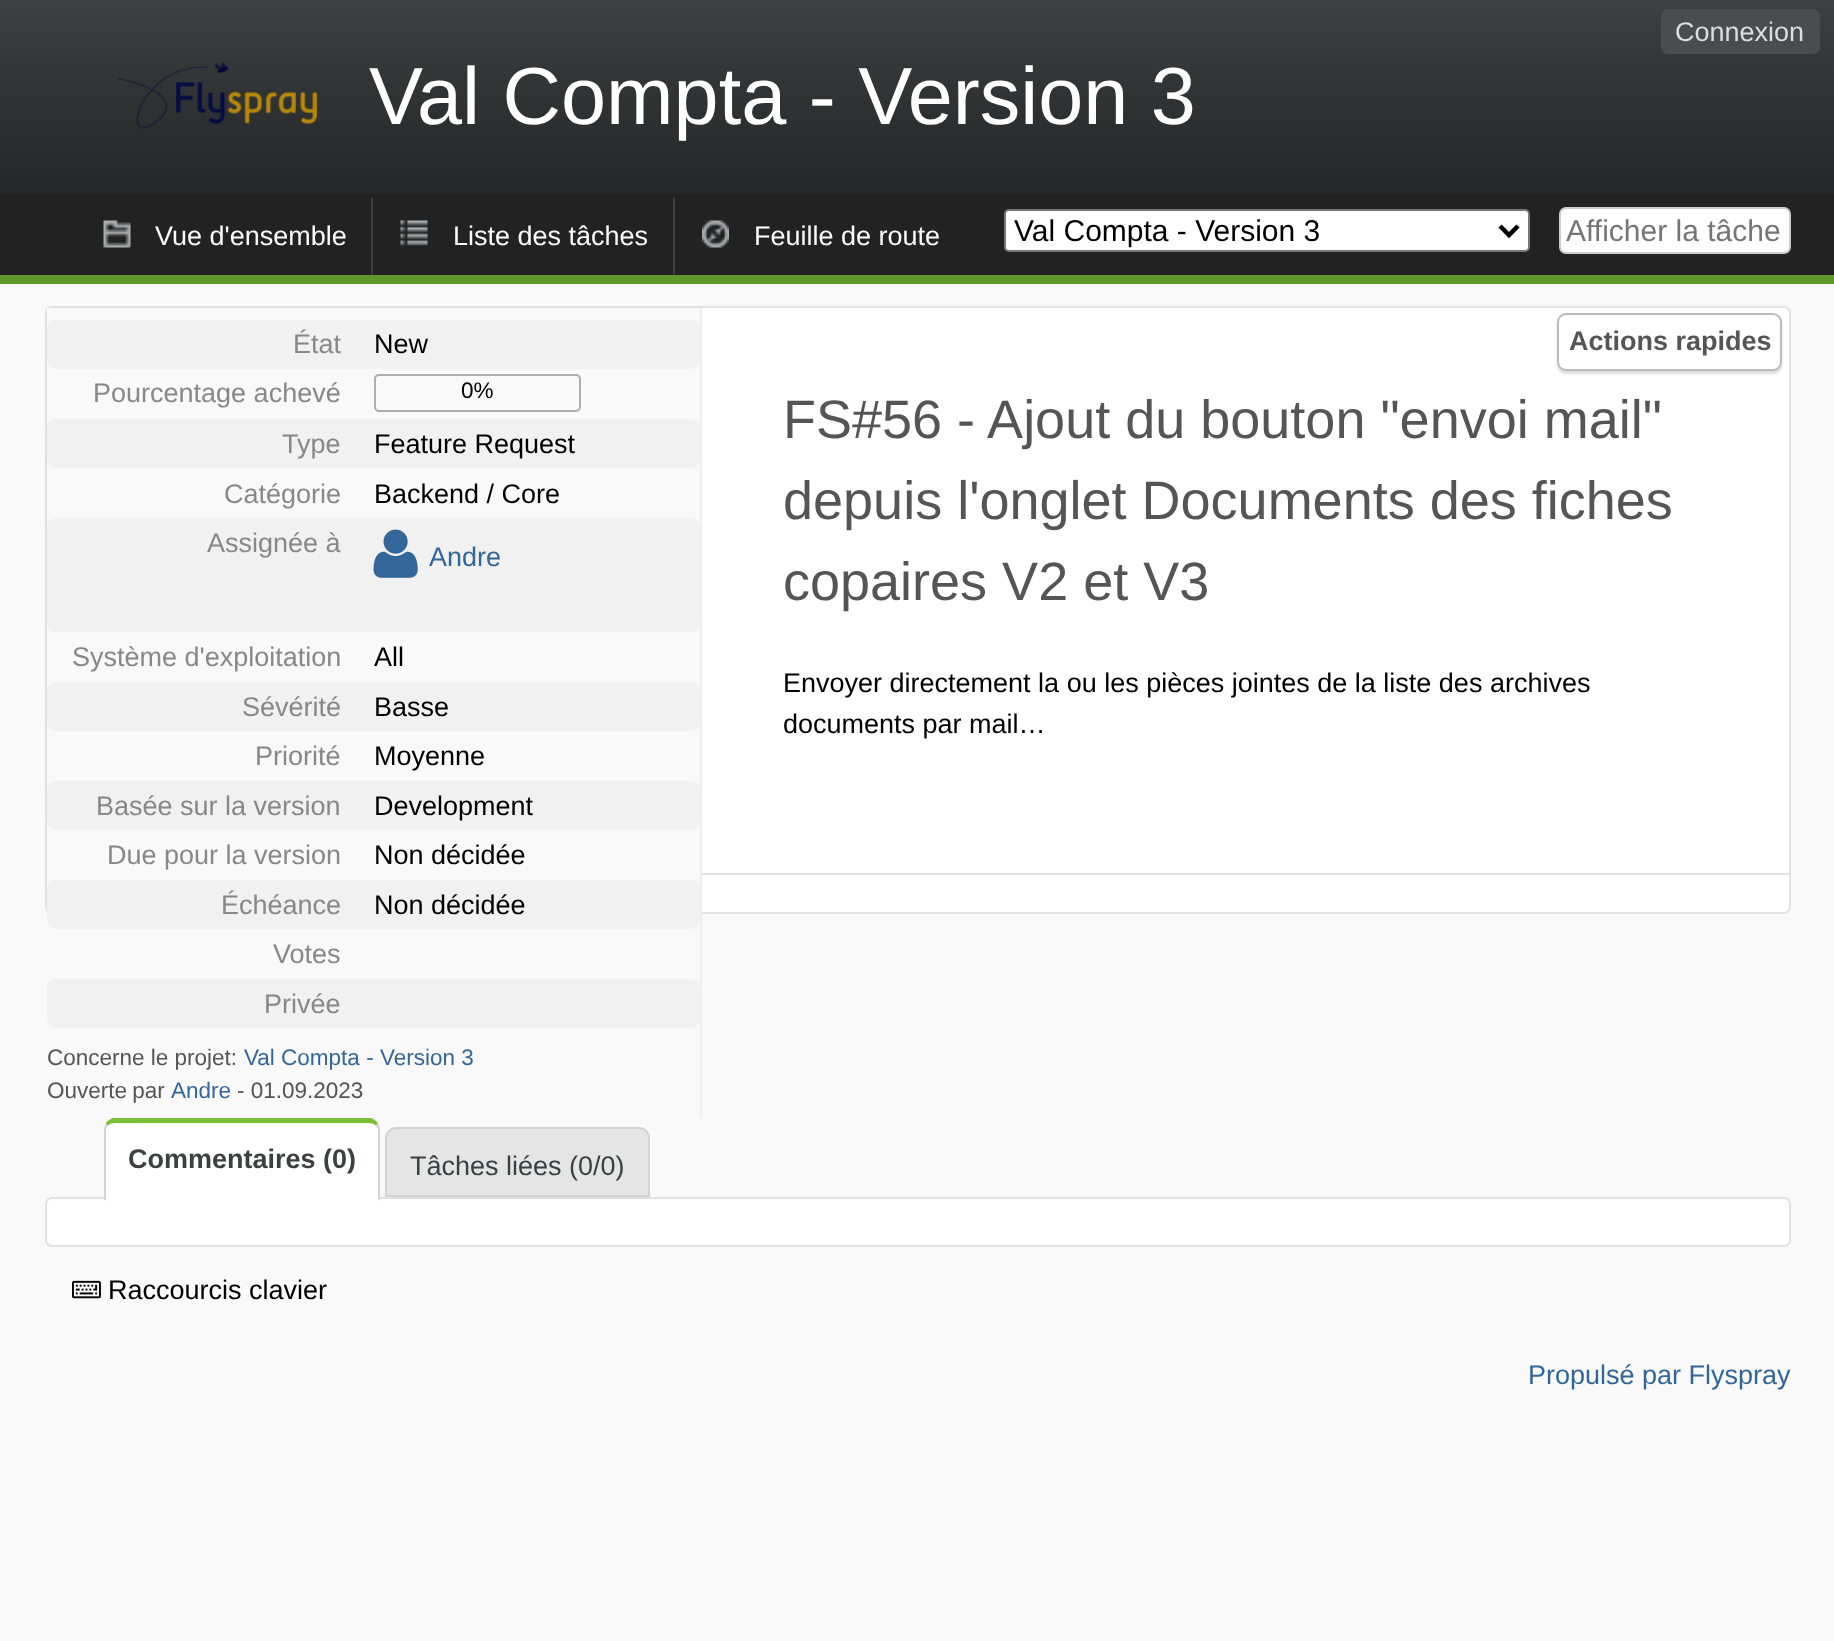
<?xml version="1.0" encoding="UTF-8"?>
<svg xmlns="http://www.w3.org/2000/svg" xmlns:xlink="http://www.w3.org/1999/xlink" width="1834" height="1641">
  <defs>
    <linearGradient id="g1" gradientUnits="userSpaceOnUse" x1="918" y1="0" x2="918" y2="194"><stop offset="0" stop-color="#3c4041" /><stop offset="1" stop-color="#242627" /></linearGradient>
  </defs>
  <rect width="100%" height="100%" fill="#f9f9f9" />
  <rect width="1834" height="194" fill="url(#g1)" />
  <rect x="1661" y="9" width="159" height="45" rx="7" fill="#494d4e" />
  <image x="117" y="62" width="201" height="67" xlink:href="image1.png" />
  <rect y="194" width="1834" height="81" fill="#222222" />
  <rect y="275" width="1834" height="9" fill="#5f9729" />
  <image x="103" y="220" width="28" height="28" xlink:href="image2.png" />
  <image x="400" y="220" width="28" height="26" xlink:href="image3.png" />
  <rect x="371" y="198" width="2" height="77" fill="#3c4041" />
  <image x="702" y="220" width="27" height="28" xlink:href="image4.png" />
  <rect x="673" y="198" width="2" height="77" fill="#3c4041" />
  <rect x="1005" y="210" width="524" height="41" rx="4" fill="#ffffff" stroke="#767676" stroke-width="2" />
  <path d="M 1500 226 l 9 9 l 9 -9" fill="none" stroke="#000000" stroke-width="4.5" />
  <rect x="1560" y="208" width="230" height="45" rx="6" fill="#ffffff" stroke="#cccccc" stroke-width="2" />
  <rect x="46" y="307" width="1744" height="606" rx="6" fill="#ffffff" stroke="#e1e1e1" stroke-width="2" />
  <rect x="47" y="308" width="653" height="606" fill="#f9f9f9" />
  <rect x="700" y="308" width="2" height="810" fill="#eeeeee" />
  <rect x="47" y="320" width="653" height="49" rx="9" fill="#f1f1f1" />
  <rect x="375" y="375" width="205" height="36" rx="4" fill="none" stroke="#aeaeae" stroke-width="2" />
  <rect x="47" y="419" width="653" height="49" rx="9" fill="#f1f1f1" />
  <rect x="47" y="518" width="653" height="114" rx="9" fill="#f1f1f1" />
  <image x="373" y="529" width="45" height="49" xlink:href="image5.png" />
  <rect x="47" y="682" width="653" height="49" rx="9" fill="#f1f1f1" />
  <rect x="47" y="781" width="653" height="49" rx="9" fill="#f1f1f1" />
  <rect x="47" y="880" width="653" height="49" rx="9" fill="#f1f1f1" />
  <rect x="47" y="979" width="653" height="49" rx="9" fill="#f1f1f1" />
  <rect x="702" y="873" width="1087" height="2" fill="#e1e1e1" />
  <rect x="1557" y="315" width="225" height="59" rx="9" fill="#dddddd" filter="blur(1px)" />
  <rect x="1558" y="314" width="223" height="56" rx="8" fill="#ffffff" stroke="#bbbbbb" stroke-width="2" />
  <rect x="46" y="1198" width="1744" height="48" rx="6" fill="#ffffff" stroke="#e1e1e1" stroke-width="2" />
  <path d="M 115 1123 h 254 c 5 0 9 3 9 7 v 69 h -272 v -69 c 0 -4 4 -7 9 -7 z" fill="#ffffff" />
  <path d="M 115 1123 c -3 0 -6 1 -8 3 l -1 -3 c 1 -2 4 -4 7 -5 h 258 c 3 1 5 3 7 5 l -2 3 c -1 -2 -4 -3 -7 -3 z" fill="#78bf34" />
  <path d="M 378 1123 c 1 2 2 4 2 7 v 71 l -2 -2 v -69 c 0 -2 -1 -3 -2 -4 z" fill="#d4d4d4" />
  <path d="M 104 1202 l 2 -3 h 272 l 2 2 z" fill="#ffffff" />
  <path d="M 104 1201 v -71 c 0 -3 1 -5 2 -7 l 1 3 c 0 1 -1 3 -1 4 v 69 z" fill="#d4d4d4" />
  <path d="M 396 1128 h 243 c 5.5 0 10 4.5 10 10 v 58 h -263 v -58 c 0 -5.5 4.5 -10 10 -10 z" fill="#e5e5e5" stroke="#d4d4d4" stroke-width="2" />
  <image x="72" y="1280" width="29" height="19" xlink:href="image6.png" />
  <text x="1675" y="41" style="font-family: Liberation Sans; font-size: 27px; fill: #dddddd">Connexion</text>
  <text x="369" y="124" style="font-family: Liberation Sans; font-size: 81px; fill: #ffffff">Val Compta - Version 3</text>
  <text x="155" y="245" style="font-family: Liberation Sans; font-size: 27px; fill: #f9f9f9">Vue d'ensemble</text>
  <text x="453" y="245" style="font-family: Liberation Sans; font-size: 27px; fill: #f9f9f9">Liste des tâches</text>
  <text x="754" y="245" style="font-family: Liberation Sans; font-size: 27px; fill: #f9f9f9">Feuille de route</text>
  <text x="1014" y="241" style="font-family: Liberation Sans; font-size: 30px; fill: #000000">Val Compta - Version 3</text>
  <text x="1566" y="241" style="font-family: Liberation Sans; font-size: 30px; fill: #757575">Afficher la tâche</text>
  <text x="293" y="353" style="font-family: Liberation Sans; font-size: 27px; fill: #888888">État</text>
  <text x="374" y="353" style="font-family: Liberation Sans; font-size: 27px; fill: #000000">New</text>
  <text x="93" y="402" style="font-family: Liberation Sans; font-size: 27px; fill: #888888">Pourcentage achevé</text>
  <text x="461" y="398" style="font-family: Liberation Sans; font-size: 22.5px; fill: #000000">0%</text>
  <text x="282" y="453" style="font-family: Liberation Sans; font-size: 27px; fill: #888888">Type</text>
  <text x="374" y="453" style="font-family: Liberation Sans; font-size: 27px; fill: #000000">Feature Request</text>
  <text x="224" y="503" style="font-family: Liberation Sans; font-size: 27px; fill: #888888">Catégorie</text>
  <text x="374" y="503" style="font-family: Liberation Sans; font-size: 27px; fill: #000000">Backend / Core</text>
  <text x="207" y="552" style="font-family: Liberation Sans; font-size: 27px; fill: #888888">Assignée à</text>
  <text x="429" y="566" style="font-family: Liberation Sans; font-size: 27px; fill: #336699">Andre</text>
  <text x="72" y="666" style="font-family: Liberation Sans; font-size: 27px; fill: #888888">Système d'exploitation</text>
  <text x="374" y="666" style="font-family: Liberation Sans; font-size: 27px; fill: #000000">All</text>
  <text x="242" y="716" style="font-family: Liberation Sans; font-size: 27px; fill: #888888">Sévérité</text>
  <text x="374" y="716" style="font-family: Liberation Sans; font-size: 27px; fill: #000000">Basse</text>
  <text x="255" y="765" style="font-family: Liberation Sans; font-size: 27px; fill: #888888">Priorité</text>
  <text x="374" y="765" style="font-family: Liberation Sans; font-size: 27px; fill: #000000">Moyenne</text>
  <text x="96" y="815" style="font-family: Liberation Sans; font-size: 27px; fill: #888888">Basée sur la version</text>
  <text x="374" y="815" style="font-family: Liberation Sans; font-size: 27px; fill: #000000">Development</text>
  <text x="107" y="864" style="font-family: Liberation Sans; font-size: 27px; fill: #888888">Due pour la version</text>
  <text x="374" y="864" style="font-family: Liberation Sans; font-size: 27px; fill: #000000">Non décidée</text>
  <text x="221" y="914" style="font-family: Liberation Sans; font-size: 27px; fill: #888888">Échéance</text>
  <text x="374" y="914" style="font-family: Liberation Sans; font-size: 27px; fill: #000000">Non décidée</text>
  <text x="273" y="963" style="font-family: Liberation Sans; font-size: 27px; fill: #888888">Votes</text>
  <text x="264" y="1013" style="font-family: Liberation Sans; font-size: 27px; fill: #888888">Privée</text>
  <text x="47" y="1065" style="font-family: Liberation Sans; font-size: 22.5px; fill: #555555">Concerne le projet:</text>
  <text x="244" y="1065" style="font-family: Liberation Sans; font-size: 22.5px; fill: #336699">Val Compta - Version 3</text>
  <text x="47" y="1098" word-spacing="-1" style="font-family: Liberation Sans; font-size: 22.5px; fill: #555555">Ouverte par</text>
  <text x="171" y="1098" style="font-family: Liberation Sans; font-size: 22.5px; fill: #336699">Andre</text>
  <text x="237" y="1098" style="font-family: Liberation Sans; font-size: 22.5px; fill: #555555">- 01.09.2023</text>
  <text x="783" y="438" style="font-family: Liberation Sans; font-size: 54px; fill: #555555">FS#56 - Ajout du bouton "envoi mail"</text>
  <text x="783" y="519" style="font-family: Liberation Sans; font-size: 54px; fill: #555555">depuis l'onglet Documents des fiches</text>
  <text x="783" y="600" style="font-family: Liberation Sans; font-size: 54px; fill: #555555">copaires V2 et V3</text>
  <text x="783" y="692" style="font-family: Liberation Sans; font-size: 27px; fill: #000000">Envoyer directement la ou les pièces jointes de la liste des archives</text>
  <text x="783" y="733" style="font-family: Liberation Sans; font-size: 27px; fill: #000000">documents par mail…</text>
  <text x="1569" y="350" style="font-family: Liberation Sans; font-size: 27px; font-weight: bold; fill: #555555">Actions rapides</text>
  <text x="128" y="1168" style="font-family: Liberation Sans; font-size: 27px; font-weight: bold; fill: #3c4041">Commentaires (0)</text>
  <text x="410" y="1175" style="font-family: Liberation Sans; font-size: 27px; fill: #3c4041">Tâches liées (0/0)</text>
  <text x="108" y="1299" style="font-family: Liberation Sans; font-size: 27px; fill: #000000">Raccourcis clavier</text>
  <text x="1528" y="1384" style="font-family: Liberation Sans; font-size: 27px; fill: #336699">Propulsé par Flyspray</text>
</svg>
